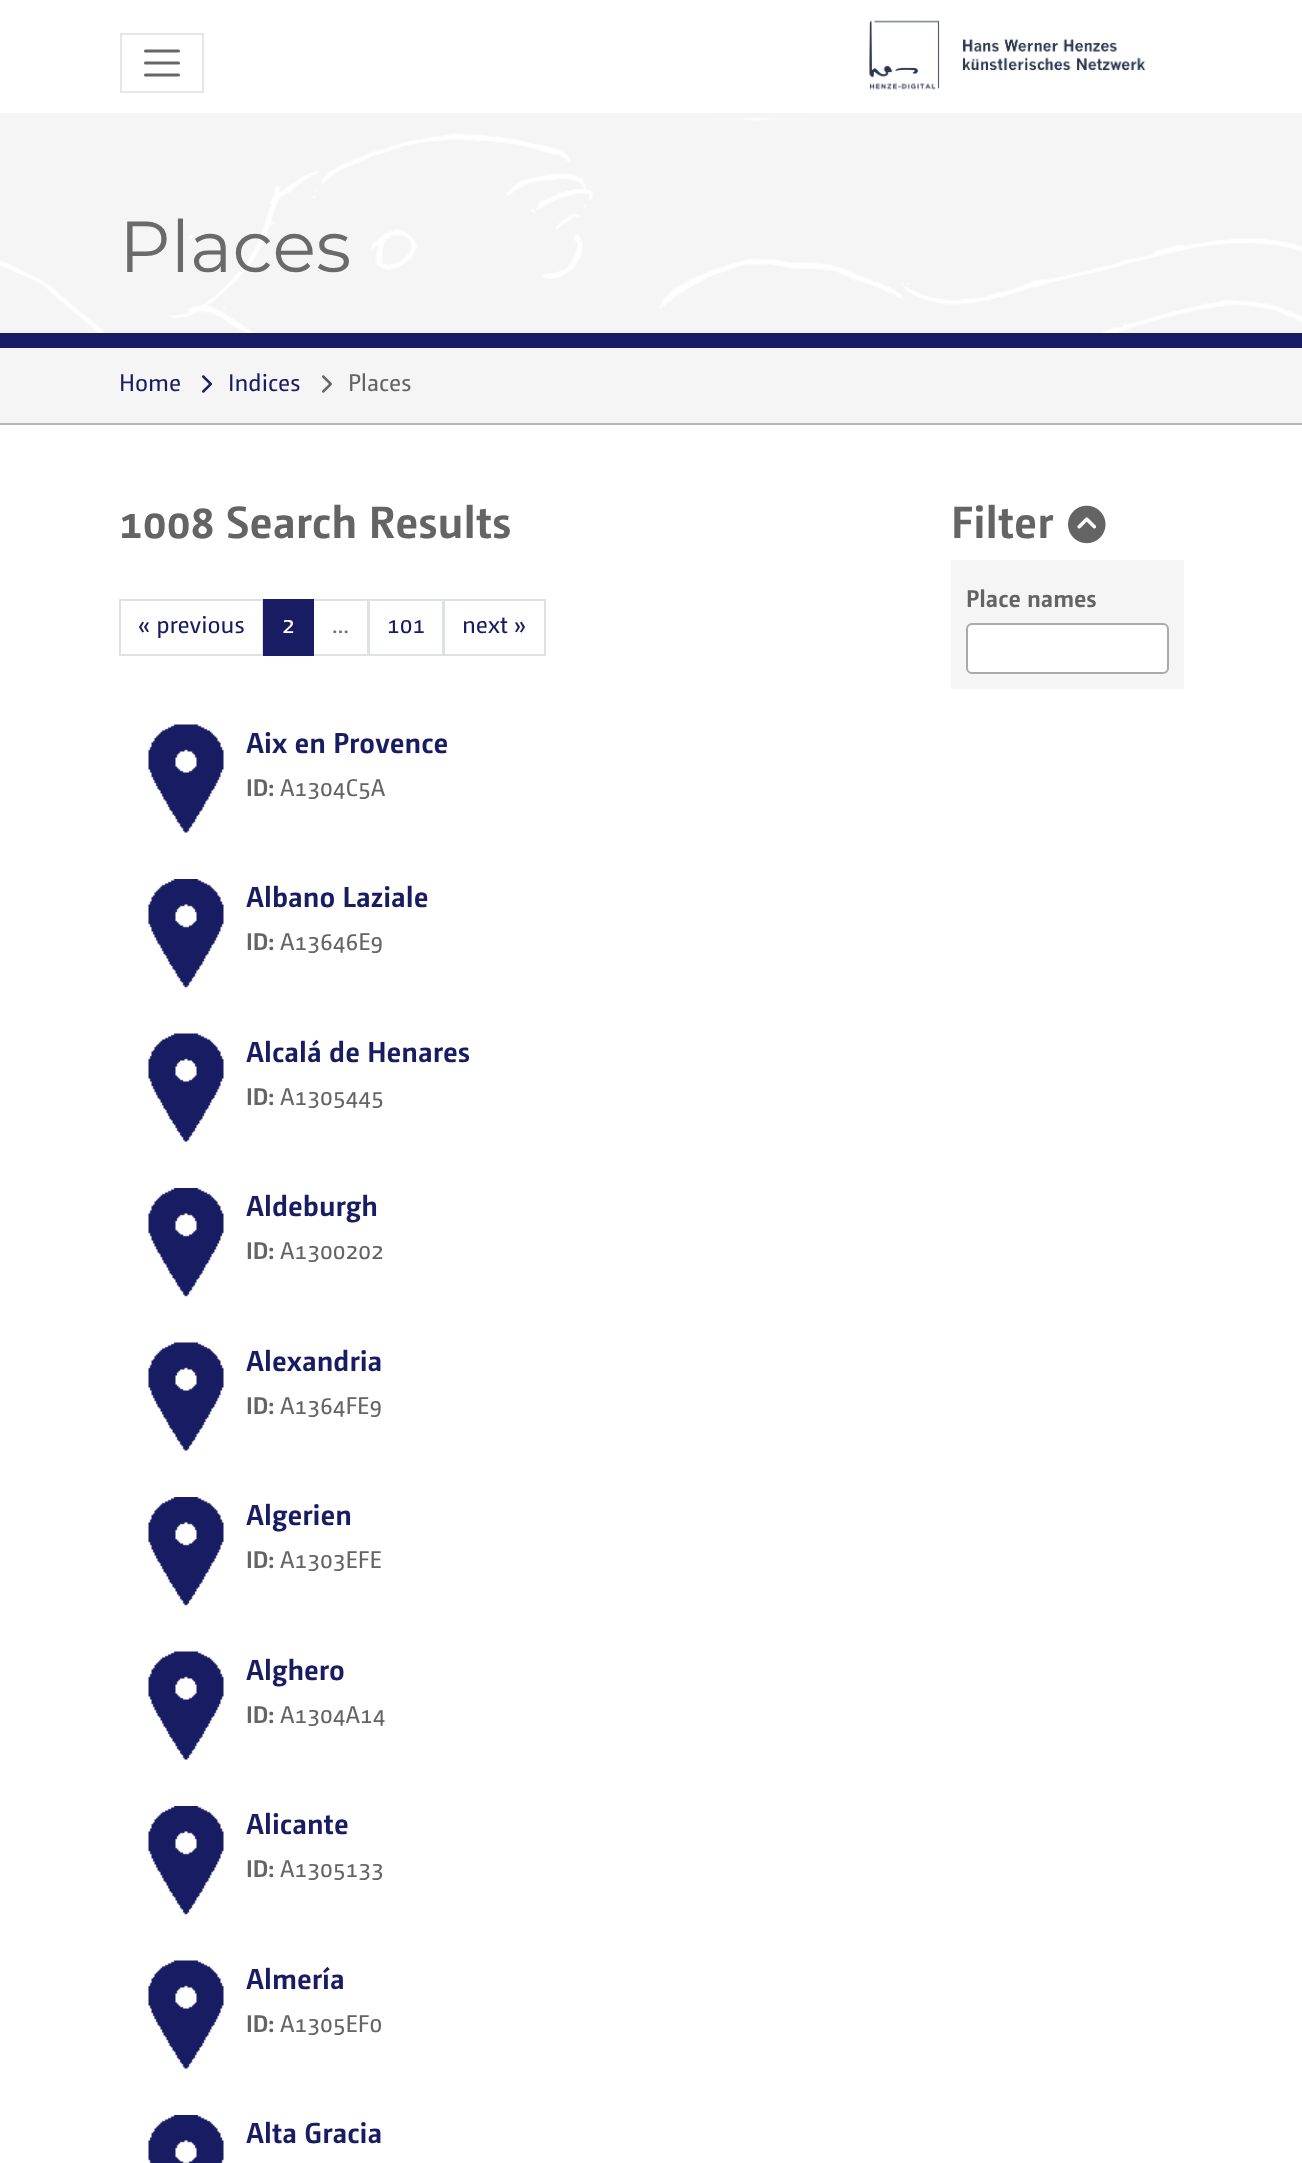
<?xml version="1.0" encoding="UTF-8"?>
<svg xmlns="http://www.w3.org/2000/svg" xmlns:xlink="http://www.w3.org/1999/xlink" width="1302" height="2163">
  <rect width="100%" height="100%" fill="#ffffff" />
  <rect x="121" y="34" width="82" height="58" fill="none" stroke="#e6e6e6" stroke-width="2" />
  <path d="M 145.5 51 h 33 m -33 12 h 33 m -33 12 h 33" fill="none" stroke="#666666" stroke-width="3" stroke-linecap="round" />
  <image x="869" y="20" width="277" height="70" xlink:href="image1.png" />
  <rect y="113" width="1302" height="6" fill="#f5f5f5" />
  <image x="0" y="118" width="1302" height="215" xlink:href="image2.png" />
  <rect y="333" width="1302" height="15" fill="#181c62" />
  <rect y="348" width="1302" height="75" fill="#f5f5f5" />
  <rect y="423" width="1302" height="2" fill="#b5b5b5" />
  <image x="202" y="375" width="10" height="18" xlink:href="image3.png" />
  <image x="322" y="375" width="10" height="18" xlink:href="image4.png" />
  <rect x="120" y="600" width="143" height="55" fill="none" stroke="#dee2e6" stroke-width="2" />
  <rect x="313" y="600" width="55" height="55" fill="none" stroke="#dee2e6" stroke-width="2" />
  <rect x="263" y="599" width="51" height="57" fill="#181c62" />
  <rect x="369" y="600" width="74" height="55" fill="none" stroke="#dee2e6" stroke-width="2" />
  <rect x="444" y="600" width="101" height="55" fill="none" stroke="#dee2e6" stroke-width="2" />
  <image x="148" y="724" width="76" height="109" xlink:href="image5.png" />
  <image x="148" y="879" width="76" height="109" xlink:href="image6.png" />
  <image x="148" y="1033" width="76" height="109" xlink:href="image5.png" />
  <image x="148" y="1188" width="76" height="109" xlink:href="image6.png" />
  <image x="148" y="1342" width="76" height="109" xlink:href="image5.png" />
  <image x="148" y="1497" width="76" height="109" xlink:href="image6.png" />
  <image x="148" y="1651" width="76" height="109" xlink:href="image5.png" />
  <image x="148" y="1806" width="76" height="109" xlink:href="image6.png" />
  <image x="148" y="1960" width="76" height="109" xlink:href="image5.png" />
  <image x="148" y="2115" width="76" height="48" xlink:href="image7.png" />
  <image x="1068" y="505" width="38" height="39" xlink:href="image8.png" />
  <rect x="951" y="560" width="233" height="129" fill="#f5f5f5" />
  <rect x="967" y="624" width="201" height="49" rx="5" fill="#ffffff" stroke="#aaaaaa" stroke-width="2" />
  <text x="119" y="272" style="font-family: Montserrat; font-size: 72px; font-weight: 100; fill: #6a6a6a">Places</text>
  <text x="119" y="391" style="font-family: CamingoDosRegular; font-size: 24px; fill: #181c62">Home</text>
  <text x="228" y="391" style="font-family: CamingoDosRegular; font-size: 24px; fill: #181c62">Indices</text>
  <text x="348" y="391" style="font-family: CamingoDosRegular; font-size: 24px; fill: #646464">Places</text>
  <text x="119" y="538" style="font-family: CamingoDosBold; font-size: 45px; font-weight: bold; fill: #646464">1008 Search Results</text>
  <text x="138" y="633" style="font-family: CamingoDosRegular; font-size: 24px; fill: #181c62">« previous</text>
  <text x="282" y="633" style="font-family: CamingoDosRegular; font-size: 24px; fill: #ffffff">2</text>
  <text x="332" y="633" style="font-family: CamingoDosRegular; font-size: 24px; fill: #6c757d">…</text>
  <text x="387" y="633" style="font-family: CamingoDosRegular; font-size: 24px; fill: #181c62">101</text>
  <text x="462" y="633" style="font-family: CamingoDosRegular; font-size: 24px; fill: #181c62">next »</text>
  <text x="246" y="753" style="font-family: CamingoDosBold; font-size: 28.75px; font-weight: bold; fill: #181c62">Aix en Provence</text>
  <text x="246" y="796" style="font-family: CamingoDosBold; font-size: 24px; font-weight: bold; fill: #646464">ID:</text>
  <text x="280" y="796" style="font-family: CamingoDosRegular; font-size: 24px; fill: #646464">A1304C5A</text>
  <text x="246" y="907" style="font-family: CamingoDosBold; font-size: 28.75px; font-weight: bold; fill: #181c62">Albano Laziale</text>
  <text x="246" y="950" style="font-family: CamingoDosBold; font-size: 24px; font-weight: bold; fill: #646464">ID:</text>
  <text x="280" y="950" style="font-family: CamingoDosRegular; font-size: 24px; fill: #646464">A13646E9</text>
  <text x="246" y="1062" style="font-family: CamingoDosBold; font-size: 28.75px; font-weight: bold; fill: #181c62">Alcalá de Henares</text>
  <text x="246" y="1105" style="font-family: CamingoDosBold; font-size: 24px; font-weight: bold; fill: #646464">ID:</text>
  <text x="280" y="1105" style="font-family: CamingoDosRegular; font-size: 24px; fill: #646464">A1305445</text>
  <text x="246" y="1216" style="font-family: CamingoDosBold; font-size: 28.75px; font-weight: bold; fill: #181c62">Aldeburgh</text>
  <text x="246" y="1259" style="font-family: CamingoDosBold; font-size: 24px; font-weight: bold; fill: #646464">ID:</text>
  <text x="280" y="1259" style="font-family: CamingoDosRegular; font-size: 24px; fill: #646464">A1300202</text>
  <text x="246" y="1371" style="font-family: CamingoDosBold; font-size: 28.75px; font-weight: bold; fill: #181c62">Alexandria</text>
  <text x="246" y="1414" style="font-family: CamingoDosBold; font-size: 24px; font-weight: bold; fill: #646464">ID:</text>
  <text x="280" y="1414" style="font-family: CamingoDosRegular; font-size: 24px; fill: #646464">A1364FE9</text>
  <text x="246" y="1525" style="font-family: CamingoDosBold; font-size: 28.75px; font-weight: bold; fill: #181c62">Algerien</text>
  <text x="246" y="1568" style="font-family: CamingoDosBold; font-size: 24px; font-weight: bold; fill: #646464">ID:</text>
  <text x="280" y="1568" style="font-family: CamingoDosRegular; font-size: 24px; fill: #646464">A1303EFE</text>
  <text x="246" y="1680" style="font-family: CamingoDosBold; font-size: 28.75px; font-weight: bold; fill: #181c62">Alghero</text>
  <text x="246" y="1723" style="font-family: CamingoDosBold; font-size: 24px; font-weight: bold; fill: #646464">ID:</text>
  <text x="280" y="1723" style="font-family: CamingoDosRegular; font-size: 24px; fill: #646464">A1304A14</text>
  <text x="246" y="1834" style="font-family: CamingoDosBold; font-size: 28.75px; font-weight: bold; fill: #181c62">Alicante</text>
  <text x="246" y="1877" style="font-family: CamingoDosBold; font-size: 24px; font-weight: bold; fill: #646464">ID:</text>
  <text x="280" y="1877" style="font-family: CamingoDosRegular; font-size: 24px; fill: #646464">A1305133</text>
  <text x="246" y="1989" style="font-family: CamingoDosBold; font-size: 28.75px; font-weight: bold; fill: #181c62">Almería</text>
  <text x="246" y="2032" style="font-family: CamingoDosBold; font-size: 24px; font-weight: bold; fill: #646464">ID:</text>
  <text x="280" y="2032" style="font-family: CamingoDosRegular; font-size: 24px; fill: #646464">A1305EF0</text>
  <text x="246" y="2143" style="font-family: CamingoDosBold; font-size: 28.75px; font-weight: bold; fill: #181c62">Alta Gracia</text>
  <text x="951" y="538" style="font-family: CamingoDosBold; font-size: 45px; font-weight: bold; fill: #646464">Filter</text>
  <text x="966" y="607" style="font-family: CamingoDosBold; font-size: 24px; font-weight: bold; fill: #646464">Place names</text>
</svg>
